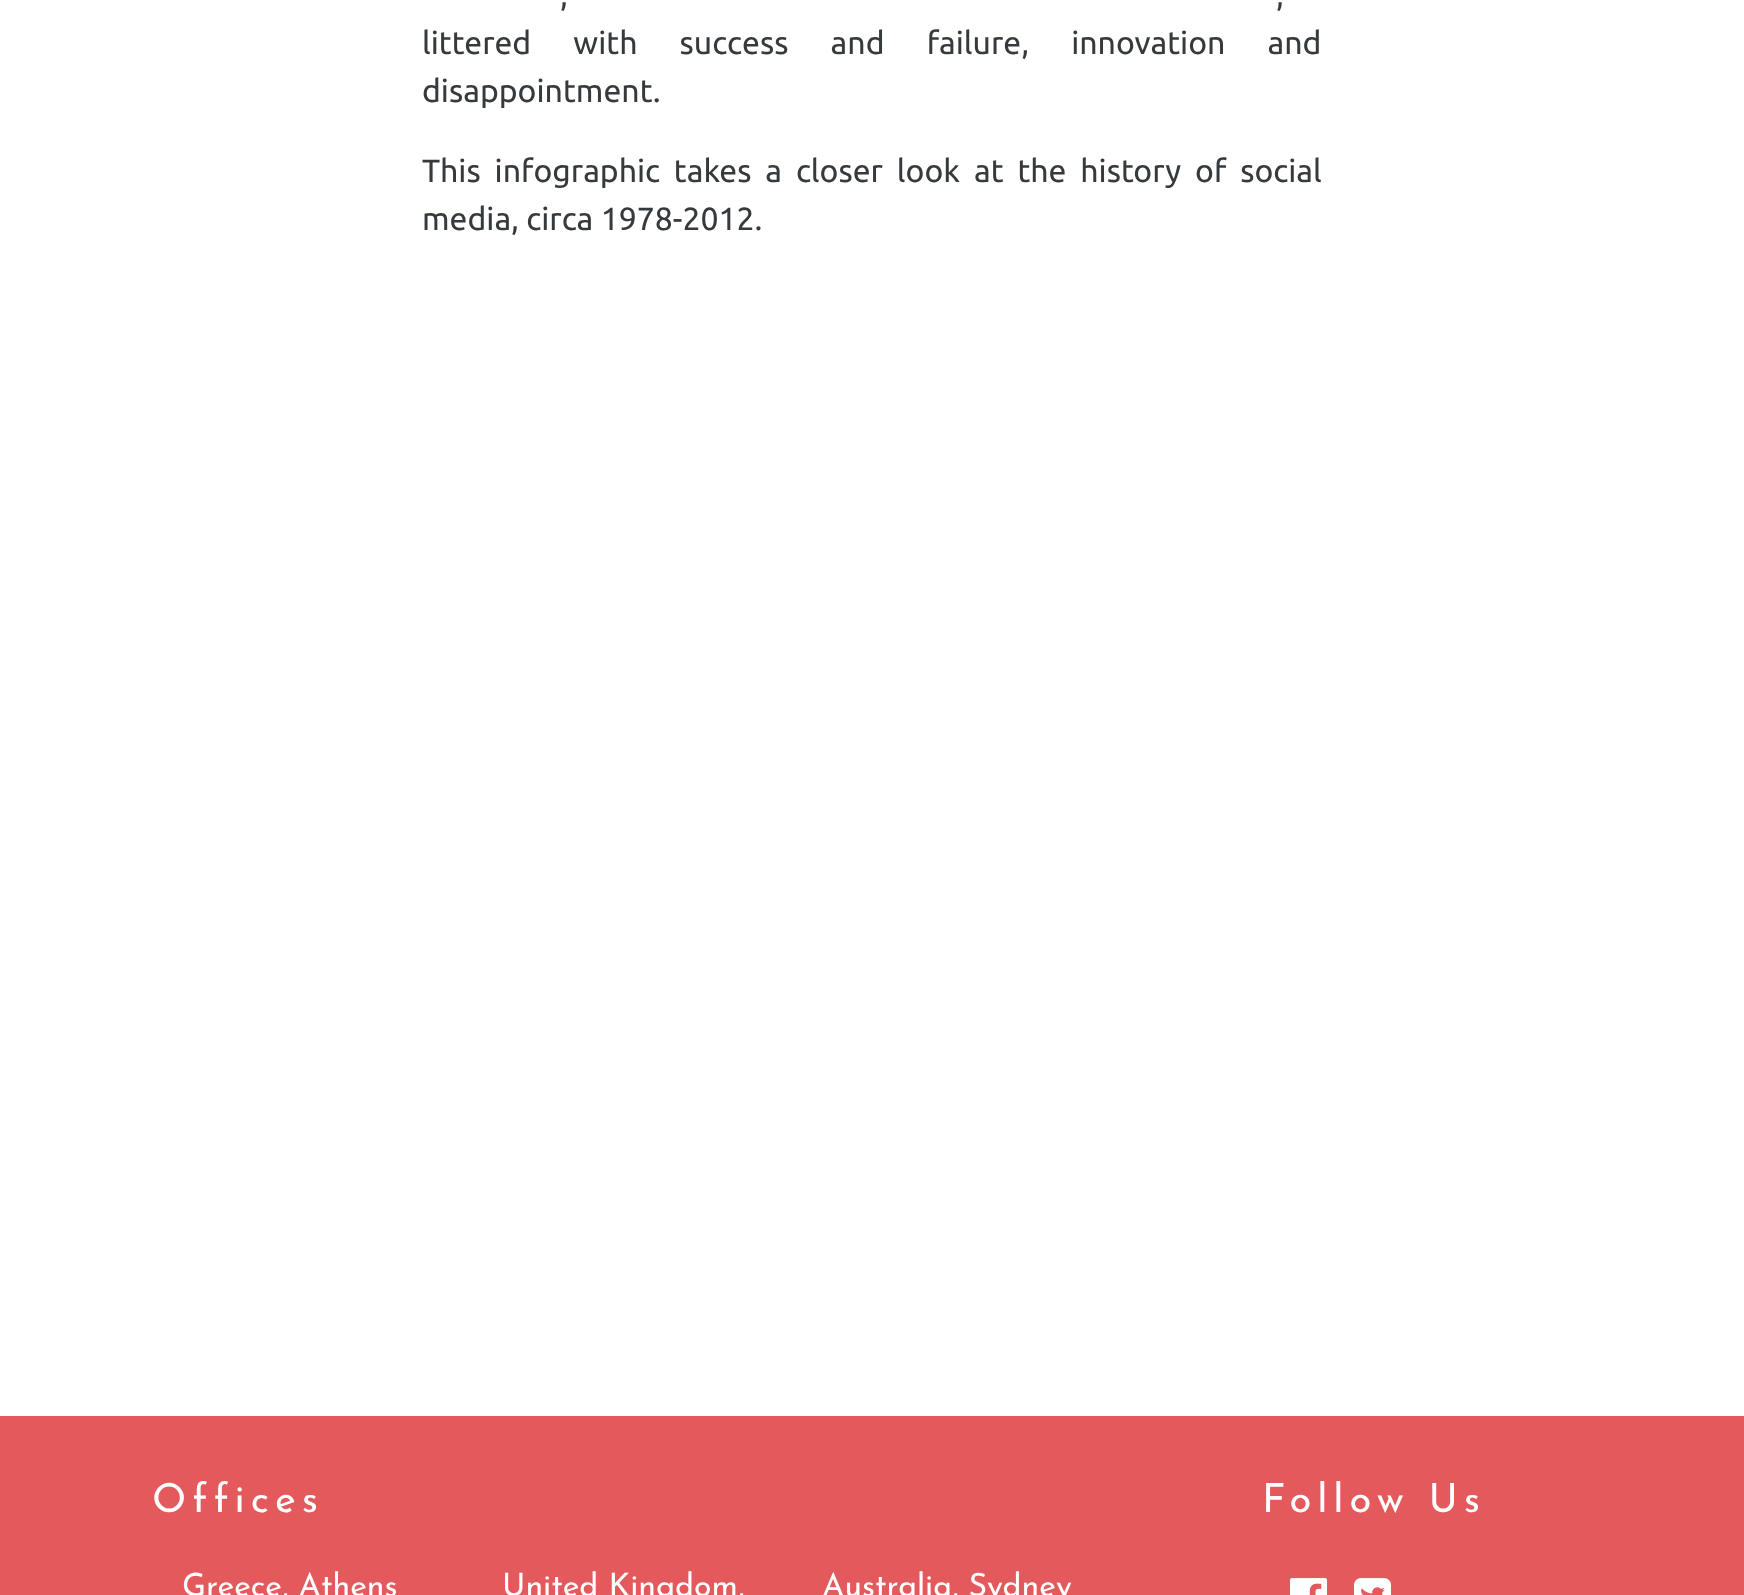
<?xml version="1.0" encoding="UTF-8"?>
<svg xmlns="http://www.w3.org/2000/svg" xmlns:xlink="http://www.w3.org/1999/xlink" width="1744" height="1595">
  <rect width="100%" height="100%" fill="#ffffff" />
  <rect y="1416" width="1744" height="179" fill="#e45a5c" />
  <image x="1290" y="1578" width="38" height="17" xlink:href="image1.png" />
  <image x="1354" y="1578" width="38" height="17" xlink:href="image2.png" />
  <text x="560" y="6" word-spacing="9" style="font-family: Ubuntu; font-size: 32px; fill: #373a3c">,</text>
  <text x="1276" y="6" word-spacing="9" style="font-family: Ubuntu; font-size: 32px; fill: #373a3c">,</text>
  <text x="422" y="54" word-spacing="34.75" style="font-family: Ubuntu; font-size: 32px; fill: #373a3c">littered with success and failure, innovation and</text>
  <text x="422" y="102" style="font-family: Ubuntu; font-size: 32px; fill: #373a3c">disappointment.</text>
  <text x="422" y="182" word-spacing="6.5" style="font-family: Ubuntu; font-size: 32px; fill: #373a3c">This infographic takes a closer look at the history of social</text>
  <text x="422" y="230" style="font-family: Ubuntu; font-size: 32px; fill: #373a3c">media, circa 1978-2012.</text>
  <text x="152" y="1512" style="font-family: Josefin Sans; font-size: 40px; letter-spacing: 6px; fill: #ffffff">Offices</text>
  <text x="182" y="1596" style="font-family: Josefin Sans; font-size: 32px; fill: #ffffff">Greece, Athens</text>
  <text x="502" y="1596" style="font-family: Josefin Sans; font-size: 32px; fill: #ffffff">United Kingdom,</text>
  <text x="822" y="1596" style="font-family: Josefin Sans; font-size: 32px; fill: #ffffff">Australia, Sydney</text>
  <text x="1262" y="1512" style="font-family: Josefin Sans; font-size: 40px; letter-spacing: 6px; fill: #ffffff">Follow Us</text>
</svg>
